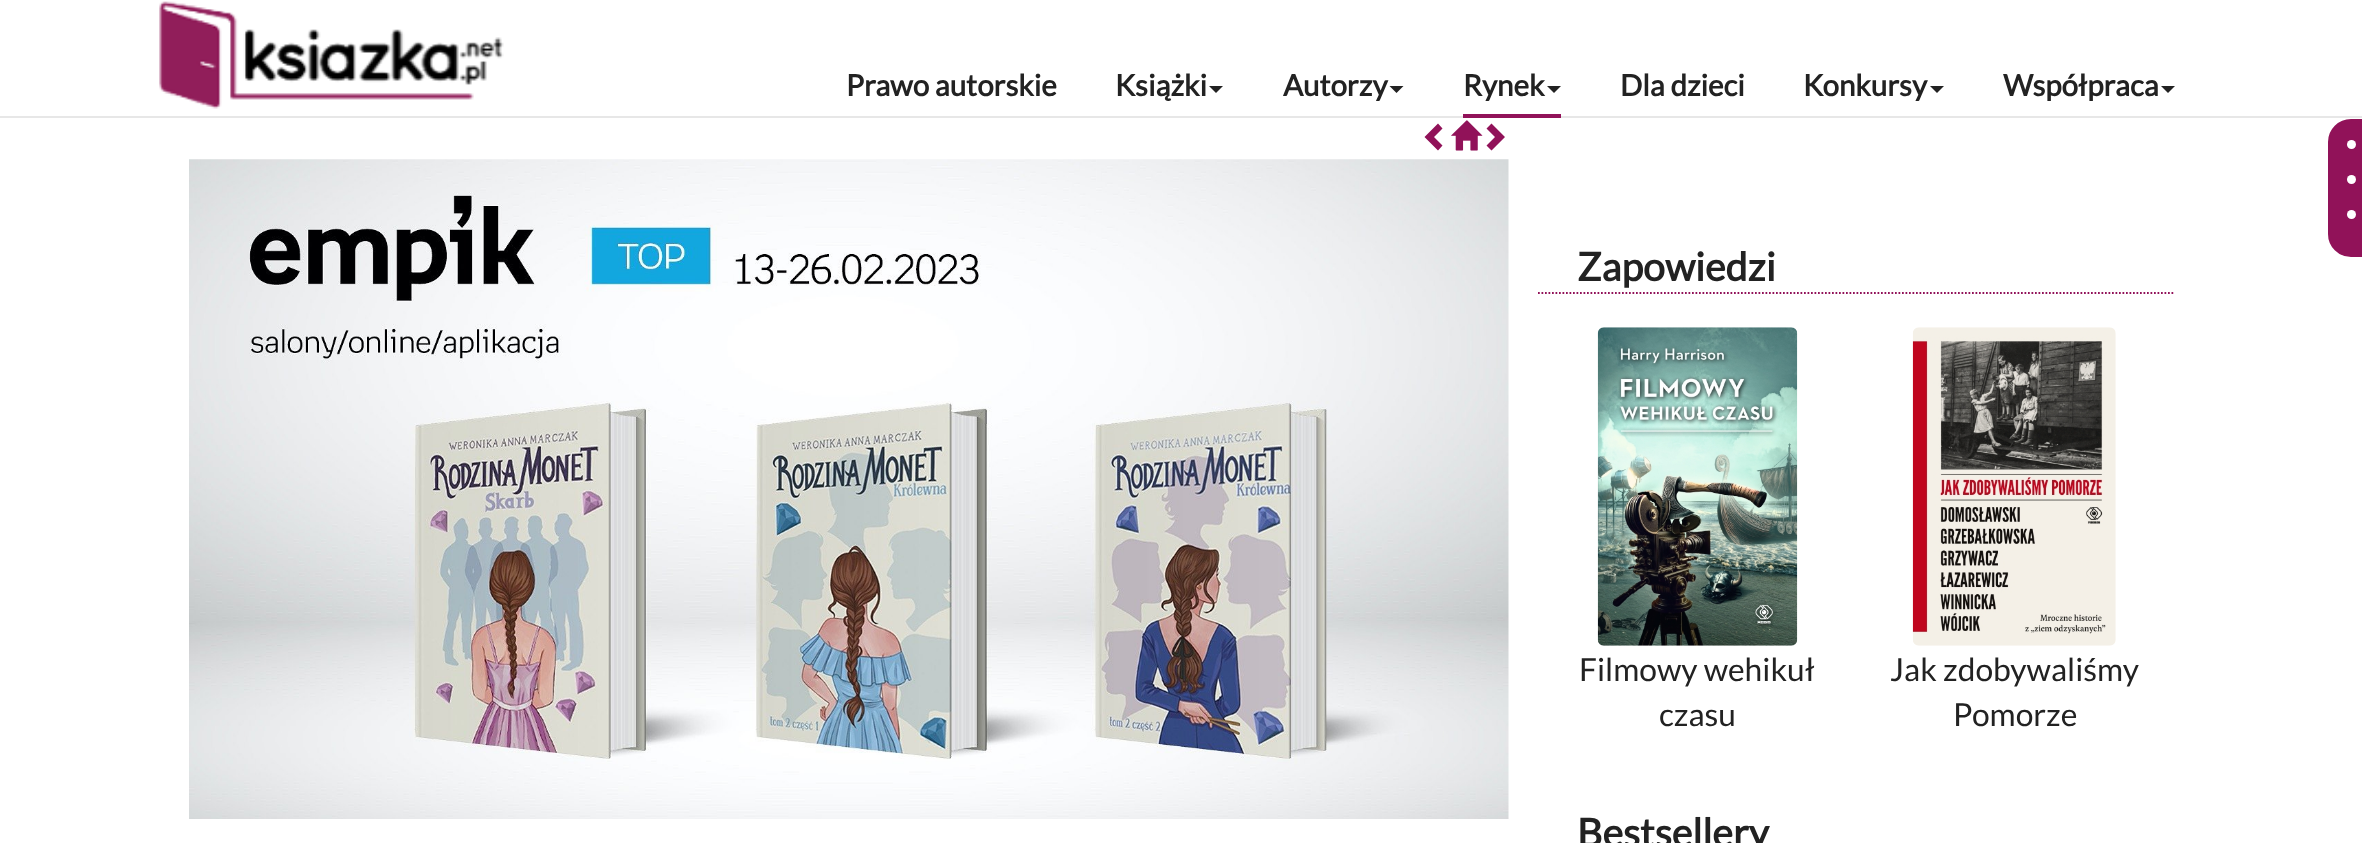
<?xml version="1.0" encoding="UTF-8"?>
<svg xmlns="http://www.w3.org/2000/svg" xmlns:xlink="http://www.w3.org/1999/xlink" width="2362" height="843">
  <rect width="100%" height="100%" fill="#ffffff" />
  <rect x="2327" y="118" width="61" height="140" rx="24" fill="#911259" stroke="#ffffff" stroke-width="2" />
  <rect y="116" width="2362" height="2" fill="#e7e7e7" />
  <image x="159" y="1" width="345" height="108" xlink:href="image1.png" />
  <path d="M 1209 86 h 14 l -7 7 z" fill="#222222" />
  <path d="M 1389.5 86 h 14 l -7 7 z" fill="#222222" />
  <path d="M 1547 86 h 14 l -7 7 z" fill="#222222" />
  <rect x="1463" y="114" width="98" height="4" fill="#911259" />
  <path d="M 1930 86 h 14 l -7 7 z" fill="#222222" />
  <path d="M 2161 86 h 14 l -7 7 z" fill="#222222" />
  <circle cx="2351.5" cy="144.5" r="4.5" fill="#ffffff" />
  <circle cx="2351.5" cy="179.5" r="4.5" fill="#ffffff" />
  <circle cx="2351.5" cy="214.5" r="4.5" fill="#ffffff" />
  <path d="M 1442.5 128.5 l -8.5 8.5 l 8.5 8.5 l -4.5 5 l -13.5 -13.5 l 13.5 -13.5 z" fill="#911259" />
  <image x="1451" y="120" width="32" height="31" xlink:href="image2.png" />
  <path d="M 1505 137 l -13.5 13.5 l -5 -5 l 8.5 -8.5 l -8.5 -8.5 l 5 -5 z" fill="#911259" />
  <image x="189" y="159" width="1320" height="660" xlink:href="image3.png" />
  <path d="M 1538 293 h 635.5" fill="none" stroke="#911259" stroke-width="1.8" stroke-dasharray="1.75 1.75" />
  <image x="1597" y="327" width="201" height="319" xlink:href="image4.png" />
  <image x="1912" y="327" width="204" height="319" xlink:href="image5.png" />
  <text x="846" y="96" style="font-family: Lato; font-size: 29.5px; font-weight: bold; fill: #222222">Prawo autorskie</text>
  <text x="1115" y="96" style="font-family: Lato; font-size: 29.5px; font-weight: bold; fill: #222222">Książki</text>
  <text x="1283" y="96" style="font-family: Lato; font-size: 29.5px; font-weight: bold; fill: #222222">Autorzy</text>
  <text x="1463" y="96" style="font-family: Lato; font-size: 29.5px; font-weight: bold; fill: #222222">Rynek</text>
  <text x="1620" y="96" style="font-family: Lato; font-size: 29.5px; font-weight: bold; fill: #222222">Dla dzieci</text>
  <text x="1803" y="96" style="font-family: Lato; font-size: 29.5px; font-weight: bold; fill: #222222">Konkursy</text>
  <text x="2003" y="96" style="font-family: Lato; font-size: 29.5px; font-weight: bold; fill: #222222">Współpraca</text>
  <text x="1577" y="281" style="font-family: Lato; font-size: 39.25px; font-weight: bold; fill: #222222">Zapowiedzi</text>
  <text x="1579" y="681" style="font-family: Lato; font-size: 31.75px; fill: #222222">Filmowy wehikuł</text>
  <text x="1659" y="726" style="font-family: Lato; font-size: 31.75px; fill: #222222">czasu</text>
  <text x="1890" y="681" style="font-family: Lato; font-size: 31.75px; fill: #222222">Jak zdobywaliśmy</text>
  <text x="1953" y="726" style="font-family: Lato; font-size: 31.75px; fill: #222222">Pomorze</text>
  <text x="1577" y="847" style="font-family: Lato; font-size: 39.25px; font-weight: bold; fill: #222222">Bestsellery</text>
</svg>
